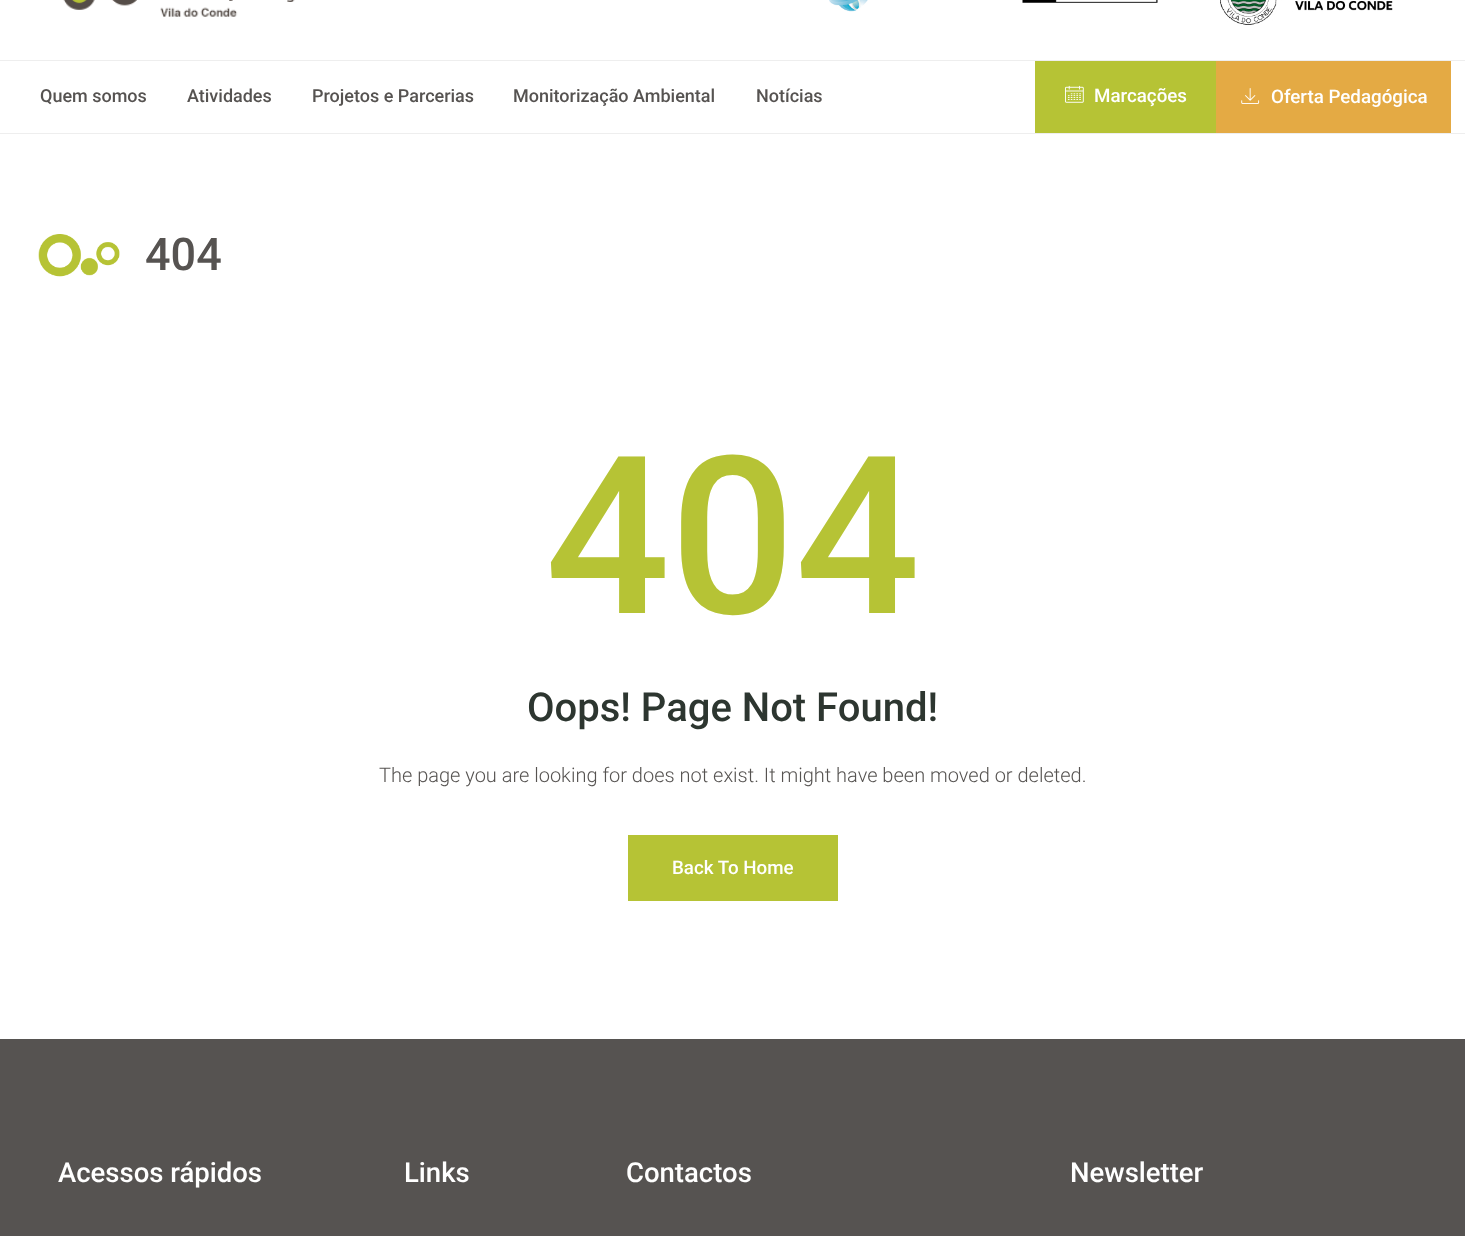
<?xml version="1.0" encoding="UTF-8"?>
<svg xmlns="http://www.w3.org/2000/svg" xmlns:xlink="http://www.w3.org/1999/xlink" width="1465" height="1236">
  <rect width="100%" height="100%" fill="#ffffff" />
  <image x="63" y="0" width="232" height="17" xlink:href="image1.png" />
  <image x="829" y="0" width="39" height="12" xlink:href="image2.png" />
  <image x="1022" y="0" width="136" height="3" xlink:href="image3.png" />
  <image x="1220" y="0" width="173" height="25" xlink:href="image4.png" />
  <rect y="60" width="1465" height="1" fill="#eeeeee" />
  <rect y="133" width="1465" height="1" fill="#eeeeee" />
  <rect x="1035" y="61" width="181" height="72" fill="#b6c335" />
  <image x="1065" y="85" width="19" height="18" xlink:href="image5.png" />
  <rect x="1216" y="61" width="235" height="72" fill="#e4aa44" />
  <image x="1241" y="88" width="19" height="16" xlink:href="image6.png" />
  <image x="38" y="234" width="82" height="43" xlink:href="image7.png" />
  <rect x="628" y="835" width="210" height="66" fill="#b6c335" />
  <rect y="1039" width="1465" height="197" fill="#565351" />
  <text x="40" y="102" style="font-family: Roboto; font-size: 18px; font-weight: 500; fill: #565351">Quem somos</text>
  <text x="187" y="102" style="font-family: Roboto; font-size: 18px; font-weight: 500; fill: #565351">Atividades</text>
  <text x="312" y="102" style="font-family: Roboto; font-size: 18px; font-weight: 500; fill: #565351">Projetos e Parcerias</text>
  <text x="513" y="102" style="font-family: Roboto; font-size: 18px; font-weight: 500; fill: #565351">Monitorização Ambiental</text>
  <text x="756" y="102" style="font-family: Roboto; font-size: 18px; font-weight: 500; fill: #565351">Notícias</text>
  <text x="1094" y="102" style="font-family: Roboto; font-size: 18.75px; font-weight: 500; fill: #ffffff">Marcações</text>
  <text x="1271" y="103" style="font-family: Roboto; font-size: 18.75px; font-weight: 500; fill: #ffffff">Oferta Pedagógica</text>
  <text x="145" y="270" style="font-family: Roboto; font-size: 45px; font-weight: 500; fill: #565351">404</text>
  <text x="545" y="613" style="font-family: Roboto; font-size: 220px; font-weight: 500; fill: #b6c335">404</text>
  <text x="527" y="721" style="font-family: Roboto; font-size: 40px; font-weight: 500; fill: #2d3630">Oops! Page Not Found!</text>
  <text x="379" y="782" style="font-family: Roboto; font-size: 20px; font-weight: 300; fill: #565351">The page you are looking for does not exist. It might have been moved or deleted.</text>
  <text x="672" y="874" style="font-family: Roboto; font-size: 18.75px; font-weight: 500; fill: #ffffff">Back To Home</text>
  <text x="58" y="1182" style="font-family: Roboto; font-size: 27.5px; font-weight: 500; fill: #ffffff">Acessos rápidos</text>
  <text x="404" y="1182" style="font-family: Roboto; font-size: 27.5px; font-weight: 500; fill: #ffffff">Links</text>
  <text x="626" y="1182" style="font-family: Roboto; font-size: 27.5px; font-weight: 500; fill: #ffffff">Contactos</text>
  <text x="1070" y="1182" style="font-family: Roboto; font-size: 27.5px; font-weight: 500; fill: #ffffff">Newsletter</text>
</svg>
